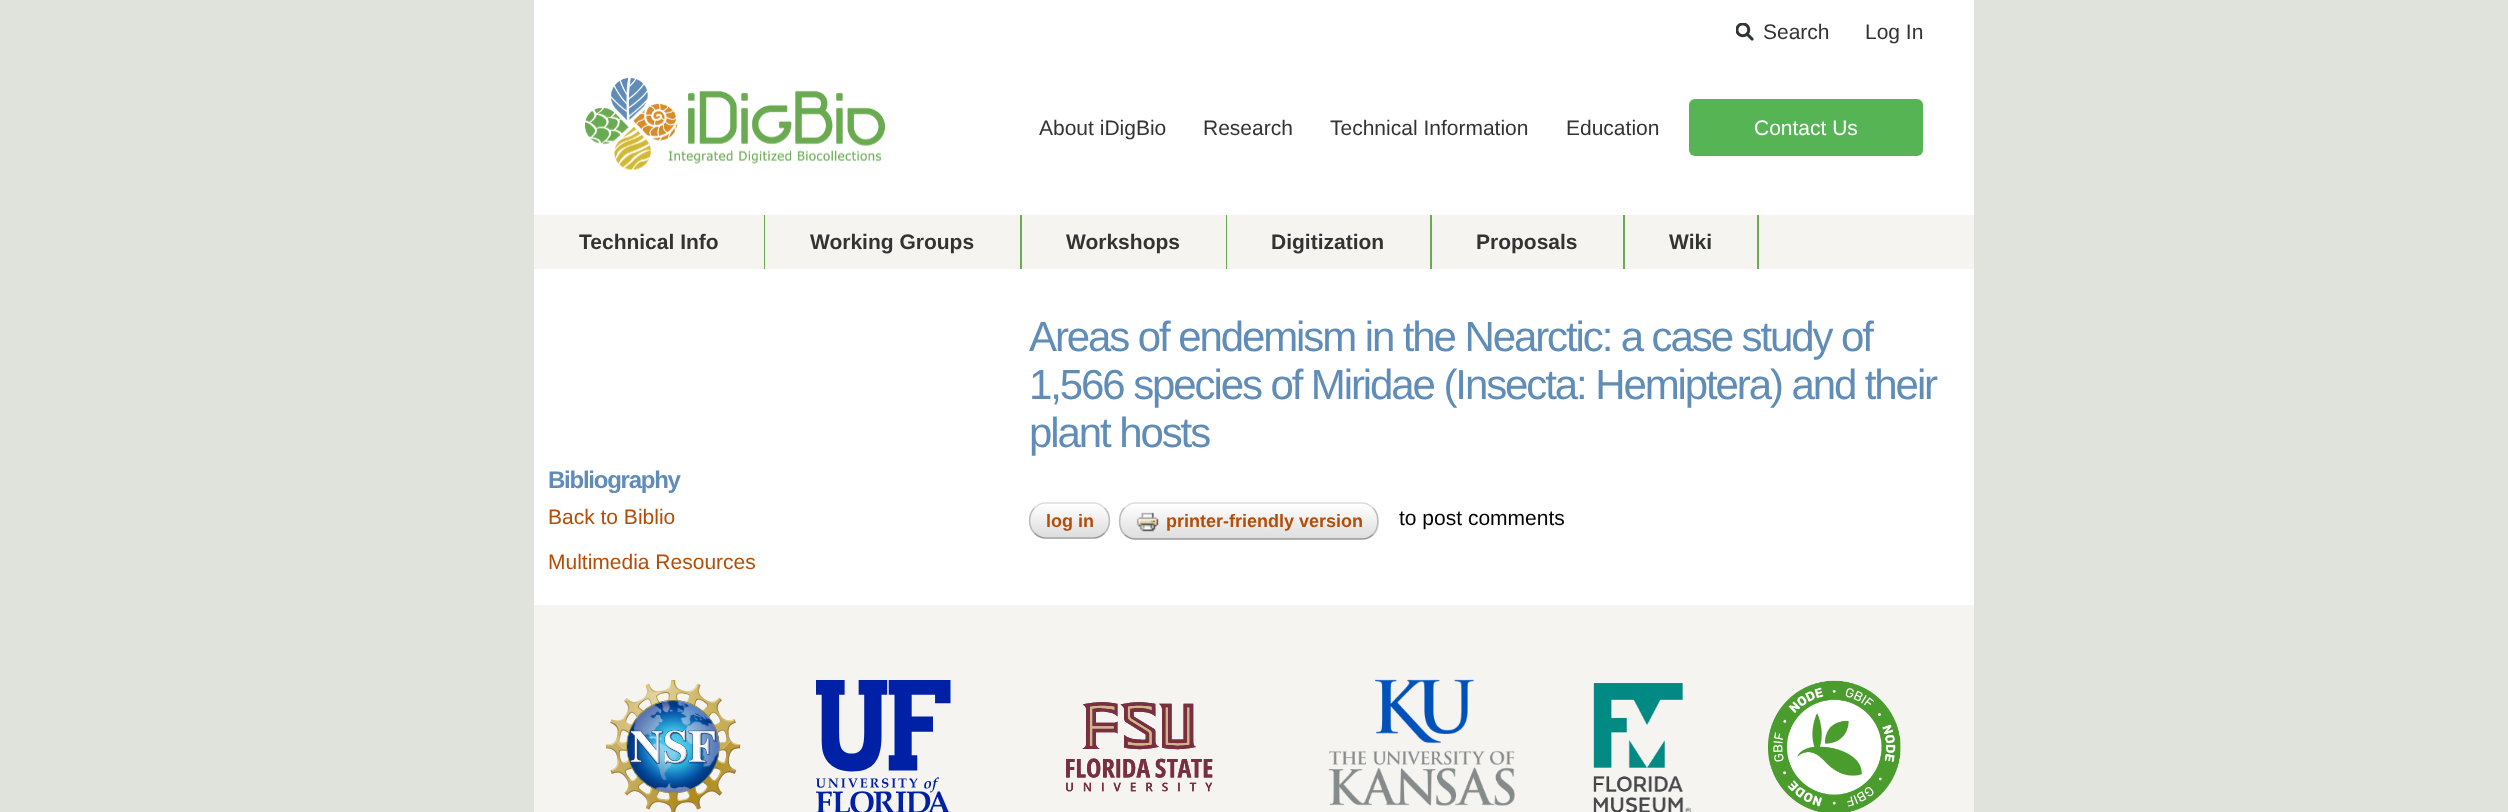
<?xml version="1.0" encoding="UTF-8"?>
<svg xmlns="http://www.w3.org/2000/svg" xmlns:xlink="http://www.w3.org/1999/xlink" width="2508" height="812">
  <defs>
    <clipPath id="clip1"><rect x="1029" y="503" width="81" height="36" rx="17" /></clipPath>
    <linearGradient id="g1" gradientUnits="userSpaceOnUse" x1="1031" y1="504" x2="1031" y2="537"><stop offset="0" stop-color="#ffffff" /><stop offset="1" stop-color="#dddddd" /></linearGradient>
    <clipPath id="clip2"><rect x="1119" y="503" width="260" height="37" rx="17" /></clipPath>
    <linearGradient id="g2" gradientUnits="userSpaceOnUse" x1="1121" y1="504" x2="1121" y2="539"><stop offset="0" stop-color="#ffffff" /><stop offset="1" stop-color="#dddddd" /></linearGradient>
  </defs>
  <rect width="100%" height="100%" fill="#e0e2dc" />
  <rect x="534" width="1440" height="605" fill="#ffffff" />
  <image x="1736" y="23" width="18" height="18" xlink:href="image1.png" />
  <image x="585" y="78" width="300" height="92" xlink:href="image2.png" />
  <rect x="1689" y="99" width="234" height="57" rx="6" fill="#56b455" />
  <rect x="534" y="215" width="1440" height="54" fill="#f5f4f1" />
  <rect x="764" y="215" width="1" height="54" fill="#6aaa51" />
  <rect x="1020" y="215" width="2" height="54" fill="#6aaa51" />
  <rect x="1226" y="215" width="1" height="54" fill="#6aaa51" />
  <rect x="1430" y="215" width="2" height="54" fill="#6aaa51" />
  <rect x="1623" y="215" width="2" height="54" fill="#6aaa51" />
  <rect x="1757" y="215" width="2" height="54" fill="#6aaa51" />
  <g clip-path="url(#clip1)">
    <rect x="1029" y="504" width="81" height="33" fill="url(#g1)" />
  </g>
  <path d="M 1034.5 508 c 3 -3 7 -5 11 -5 h 48 c 4 0 8 2 11 5" fill="none" stroke="#dddddd" stroke-width="1.5" />
  <path d="M 1104.5 508 c 6.5 6.5 6.5 18.5 0 25" fill="none" stroke="#bbbbbb" stroke-width="1.5" />
  <path d="M 1104.5 533 c -3 3 -7 5 -11 5 h -48 c -4 0 -8 -2 -11 -5" fill="none" stroke="#999999" stroke-width="1.5" />
  <path d="M 1034.5 533 c -6.5 -6.5 -6.5 -18.5 0 -25" fill="none" stroke="#bbbbbb" stroke-width="1.5" />
  <g clip-path="url(#clip2)">
    <rect x="1119" y="504" width="260" height="35" fill="url(#g2)" />
  </g>
  <path d="M 1124.5 508 c 3 -3 7 -5 11 -5 h 226.5 c 4 0 8 2 11 5" fill="none" stroke="#dddddd" stroke-width="1.5" />
  <path d="M 1373 508 c 6.5 6.5 6.5 20 0 26.5" fill="none" stroke="#bbbbbb" stroke-width="1.5" />
  <path d="M 1373 534.5 c -3 3 -7 4.5 -11 4.5 h -226.5 c -4 0 -8 -1.5 -11 -4.5" fill="none" stroke="#999999" stroke-width="1.5" />
  <path d="M 1124.5 534.5 c -6.5 -6.5 -6.5 -20 0 -26.5" fill="none" stroke="#bbbbbb" stroke-width="1.5" />
  <image x="1136" y="512" width="23" height="20" xlink:href="image3.png" />
  <rect x="534" y="605" width="1440" height="207" fill="#f5f4f1" />
  <image x="606" y="680" width="135" height="132" xlink:href="image4.png" />
  <image x="816" y="680" width="135" height="132" xlink:href="image5.png" />
  <image x="1066" y="702" width="147" height="90" xlink:href="image6.png" />
  <image x="1328" y="679" width="187" height="127" xlink:href="image7.png" />
  <image x="1593" y="683" width="99" height="129" xlink:href="image8.png" />
  <image x="1768" y="680" width="133" height="132" xlink:href="image9.png" />
  <text x="1763" y="39" style="font-family: Liberation Sans; font-size: 21px; fill: #333333">Search</text>
  <text x="1865" y="39" style="font-family: Liberation Sans; font-size: 21px; fill: #333333">Log In</text>
  <text x="1039" y="135" style="font-family: Liberation Sans; font-size: 21px; fill: #333333">About iDigBio</text>
  <text x="1203" y="135" style="font-family: Liberation Sans; font-size: 21px; fill: #333333">Research</text>
  <text x="1330" y="135" style="font-family: Liberation Sans; font-size: 21px; fill: #333333">Technical Information</text>
  <text x="1566" y="135" style="font-family: Liberation Sans; font-size: 21px; fill: #333333">Education</text>
  <text x="1754" y="135" style="font-family: Liberation Sans; font-size: 21px; fill: #ffffff">Contact Us</text>
  <text x="579" y="249" style="font-family: Liberation Sans; font-size: 21px; font-weight: bold; fill: #333333">Technical Info</text>
  <text x="810" y="249" style="font-family: Liberation Sans; font-size: 21px; font-weight: bold; fill: #333333">Working Groups</text>
  <text x="1066" y="249" style="font-family: Liberation Sans; font-size: 21px; font-weight: bold; fill: #333333">Workshops</text>
  <text x="1271" y="249" style="font-family: Liberation Sans; font-size: 21px; font-weight: bold; fill: #333333">Digitization</text>
  <text x="1476" y="249" style="font-family: Liberation Sans; font-size: 21px; font-weight: bold; fill: #333333">Proposals</text>
  <text x="1669" y="249" style="font-family: Liberation Sans; font-size: 21px; font-weight: bold; fill: #333333">Wiki</text>
  <text x="548" y="488" style="font-family: Liberation Sans; font-size: 24px; font-weight: bold; letter-spacing: -1.25px; fill: #608cb8">Bibliography</text>
  <text x="548" y="524" style="font-family: Liberation Sans; font-size: 21px; fill: #b44d07">Back to Biblio</text>
  <text x="548" y="569" style="font-family: Liberation Sans; font-size: 21px; fill: #b44d07">Multimedia Resources</text>
  <text x="1029" y="351" style="font-family: Liberation Sans; font-size: 42px; letter-spacing: -2.1px; fill: #608cb8">Areas of endemism in the Nearctic: a case study of</text>
  <text x="1029" y="399" style="font-family: Liberation Sans; font-size: 42px; letter-spacing: -2.1px; fill: #608cb8">1,566 species of Miridae (Insecta: Hemiptera) and their</text>
  <text x="1029" y="447" style="font-family: Liberation Sans; font-size: 42px; letter-spacing: -2.1px; fill: #608cb8">plant hosts</text>
  <text x="1046" y="527" style="font-family: Liberation Sans; font-size: 18px; font-weight: bold; fill: #b44d07">log in</text>
  <text x="1399" y="525" style="font-family: Liberation Sans; font-size: 21px; fill: #000000">to post comments</text>
  <text x="1166" y="527" style="font-family: Liberation Sans; font-size: 18px; font-weight: bold; fill: #b44d07">printer-friendly version</text>
</svg>
